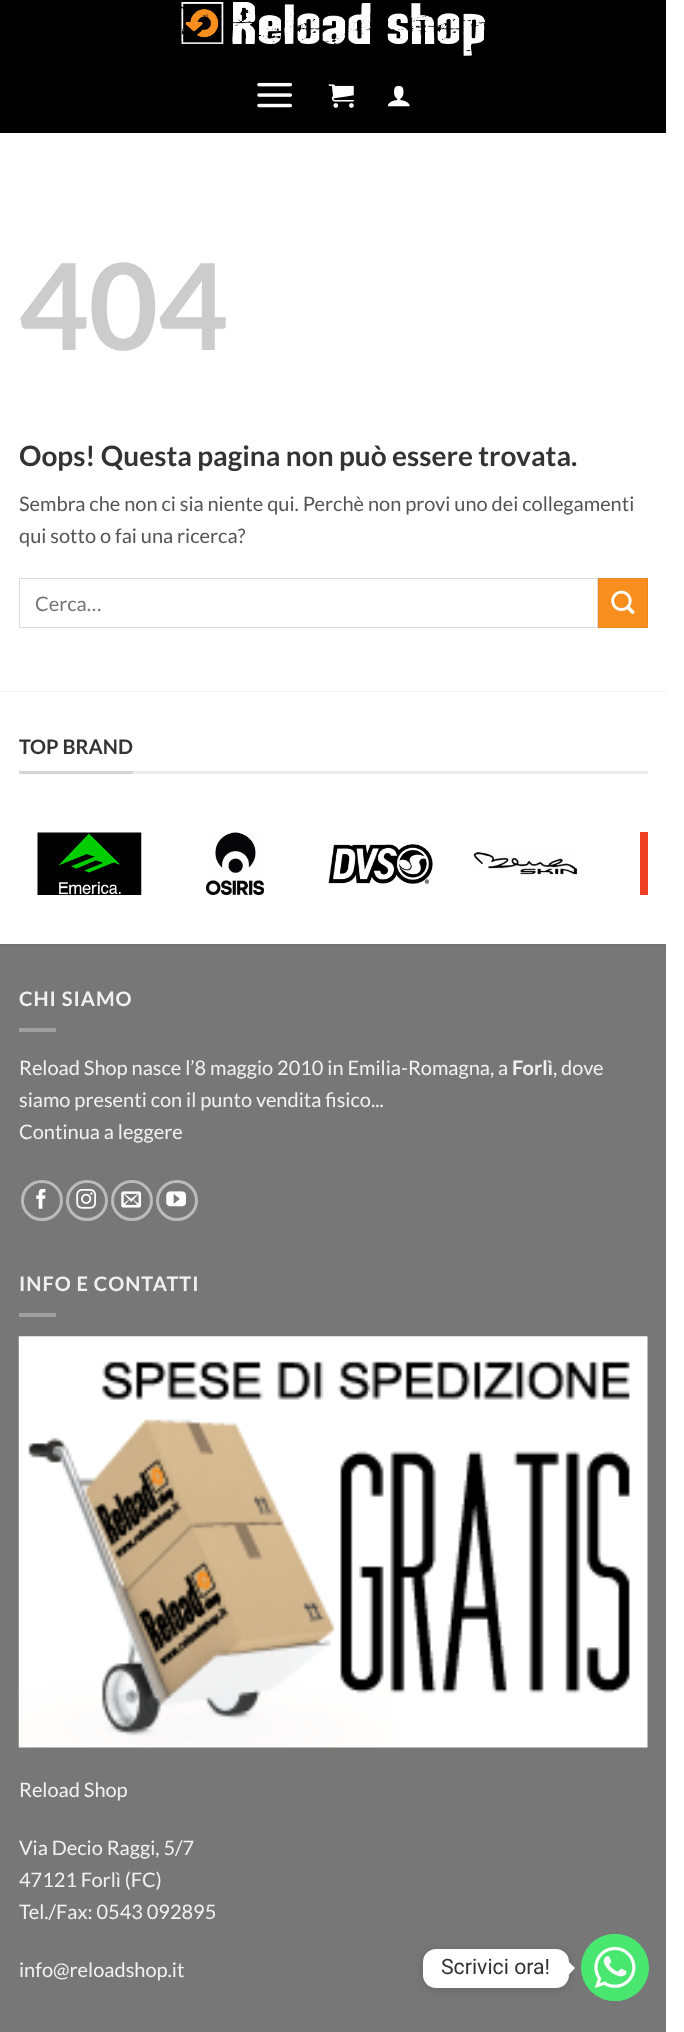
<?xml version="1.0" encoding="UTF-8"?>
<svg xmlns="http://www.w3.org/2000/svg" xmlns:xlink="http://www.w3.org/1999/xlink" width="684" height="2032">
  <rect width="100%" height="100%" fill="#ffffff" />
  <rect width="666" height="133" fill="#000000" />
  <image x="181" y="2" width="304" height="54" xlink:href="image1.png" />
  <image x="257" y="82" width="36" height="26" xlink:href="image2.png" />
  <image x="328" y="84" width="26" height="24" xlink:href="image3.png" />
  <image x="387" y="85" width="23" height="22" xlink:href="image4.png" />
  <rect x="19.5" y="578.5" width="578" height="49" fill="none" stroke="#dddddd" />
  <rect x="598.5" y="578.5" width="49" height="49" fill="#f78e1e" stroke="#eb871d" />
  <image x="611" y="590" width="24" height="24" xlink:href="image5.png" />
  <rect y="691" width="666" height="1" fill="#f2f2f2" />
  <rect x="133" y="771" width="515" height="3" fill="#ececec" />
  <rect x="19" y="771" width="114" height="3" fill="#d4d4d4" />
  <image x="37" y="832" width="105" height="63" xlink:href="image6.png" />
  <image x="206" y="832" width="58" height="63" xlink:href="image7.png" />
  <image x="328" y="844" width="105" height="40" xlink:href="image8.png" />
  <image x="473" y="852" width="105" height="23" xlink:href="image9.png" />
  <rect x="640" y="832" width="8" height="63" fill="#ef4023" />
  <rect y="945" width="666" height="1087" fill="#777777" />
  <rect y="944" width="666" height="1" fill="#717171" />
  <rect x="19" y="1028" width="37" height="4" fill="#a0a0a0" />
  <rect x="22.5" y="1181.5" width="39" height="38" rx="19" fill="none" stroke="#bbbbbb" stroke-width="3" />
  <image x="36" y="1188" width="10" height="21" xlink:href="image10.png" />
  <rect x="67.5" y="1181.5" width="39" height="38" rx="19" fill="none" stroke="#bbbbbb" stroke-width="3" />
  <image x="76" y="1188" width="20" height="21" xlink:href="image11.png" />
  <rect x="112.5" y="1181.5" width="39" height="38" rx="19" fill="none" stroke="#bbbbbb" stroke-width="3" />
  <image x="121" y="1191" width="21" height="17" xlink:href="image12.png" />
  <rect x="157.5" y="1181.5" width="39" height="38" rx="19" fill="none" stroke="#bbbbbb" stroke-width="3" />
  <image x="166" y="1191" width="21" height="16" xlink:href="image13.png" />
  <rect x="19" y="1313" width="37" height="4" fill="#a0a0a0" />
  <image x="18" y="1336" width="630" height="412" xlink:href="image14.png" />
  <rect x="581" y="1934" width="68" height="67" rx="33.5" fill="#49e670" />
  <image x="581" y="1934" width="68" height="67" xlink:href="image15.png" />
  <rect x="423" y="1950" width="146" height="39" rx="13" fill="#000000" fill-opacity="0.15" filter="blur(5px)" />
  <rect x="423" y="1949" width="146" height="39" rx="13" fill="#ffffff" />
  <path d="M 569 1974.5 v -12.5 l 6 6 z" fill="#ffffff" />
  <text x="19" y="350" style="font-family: Lato; font-size: 120px; font-weight: bold; fill: #cccccc">404</text>
  <text x="19" y="466" style="font-family: Lato; font-size: 28px; font-weight: bold; fill: #333333">Oops! Questa pagina non può essere trovata.</text>
  <text x="19" y="511" style="font-family: Lato; font-size: 20px; fill: #555555">Sembra che non ci sia niente qui. Perchè non provi uno dei collegamenti</text>
  <text x="19" y="543" style="font-family: Lato; font-size: 20px; fill: #555555">qui sotto o fai una ricerca?</text>
  <text x="35" y="611" style="font-family: Lato; font-size: 20px; fill: #757575">Cerca…</text>
  <text x="19" y="754" style="font-family: Lato; font-size: 20px; font-weight: bold; fill: #333333">TOP BRAND</text>
  <text x="19" y="1006" style="font-family: Lato; font-size: 20px; font-weight: bold; letter-spacing: 1px; fill: #f1f1f1">CHI SIAMO</text>
  <text x="19" y="1075" style="font-family: Lato; font-size: 20px; fill: #f1f1f1">Reload Shop nasce l’8 maggio 2010 in Emilia-Romagna, a</text>
  <text x="512" y="1075" style="font-family: Lato; font-size: 20px; font-weight: bold; fill: #f1f1f1">Forlì</text>
  <text x="553" y="1075" style="font-family: Lato; font-size: 20px; fill: #f1f1f1">, dove</text>
  <text x="19" y="1107" style="font-family: Lato; font-size: 20px; fill: #f1f1f1">siamo presenti con il punto vendita fisico...</text>
  <text x="19" y="1139" style="font-family: Lato; font-size: 20px; fill: #f1f1f1">Continua a leggere</text>
  <text x="19" y="1291" style="font-family: Lato; font-size: 20px; font-weight: bold; letter-spacing: 1px; fill: #f1f1f1">INFO E CONTATTI</text>
  <text x="19" y="1797" style="font-family: Lato; font-size: 20px; fill: #f1f1f1">Reload Shop</text>
  <text x="19" y="1855" style="font-family: Lato; font-size: 20px; fill: #f1f1f1">Via Decio Raggi, 5/7</text>
  <text x="19" y="1887" style="font-family: Lato; font-size: 20px; fill: #f1f1f1">47121 Forlì (FC)</text>
  <text x="19" y="1919" style="font-family: Lato; font-size: 20px; fill: #f1f1f1">Tel./Fax: 0543 092895</text>
  <text x="19" y="1977" style="font-family: Lato; font-size: 20px; fill: #f1f1f1">info@reloadshop.it</text>
  <text x="441" y="1974" style="font-family: Roboto; font-size: 21.25px; fill: #333333">Scrivici ora!</text>
</svg>
